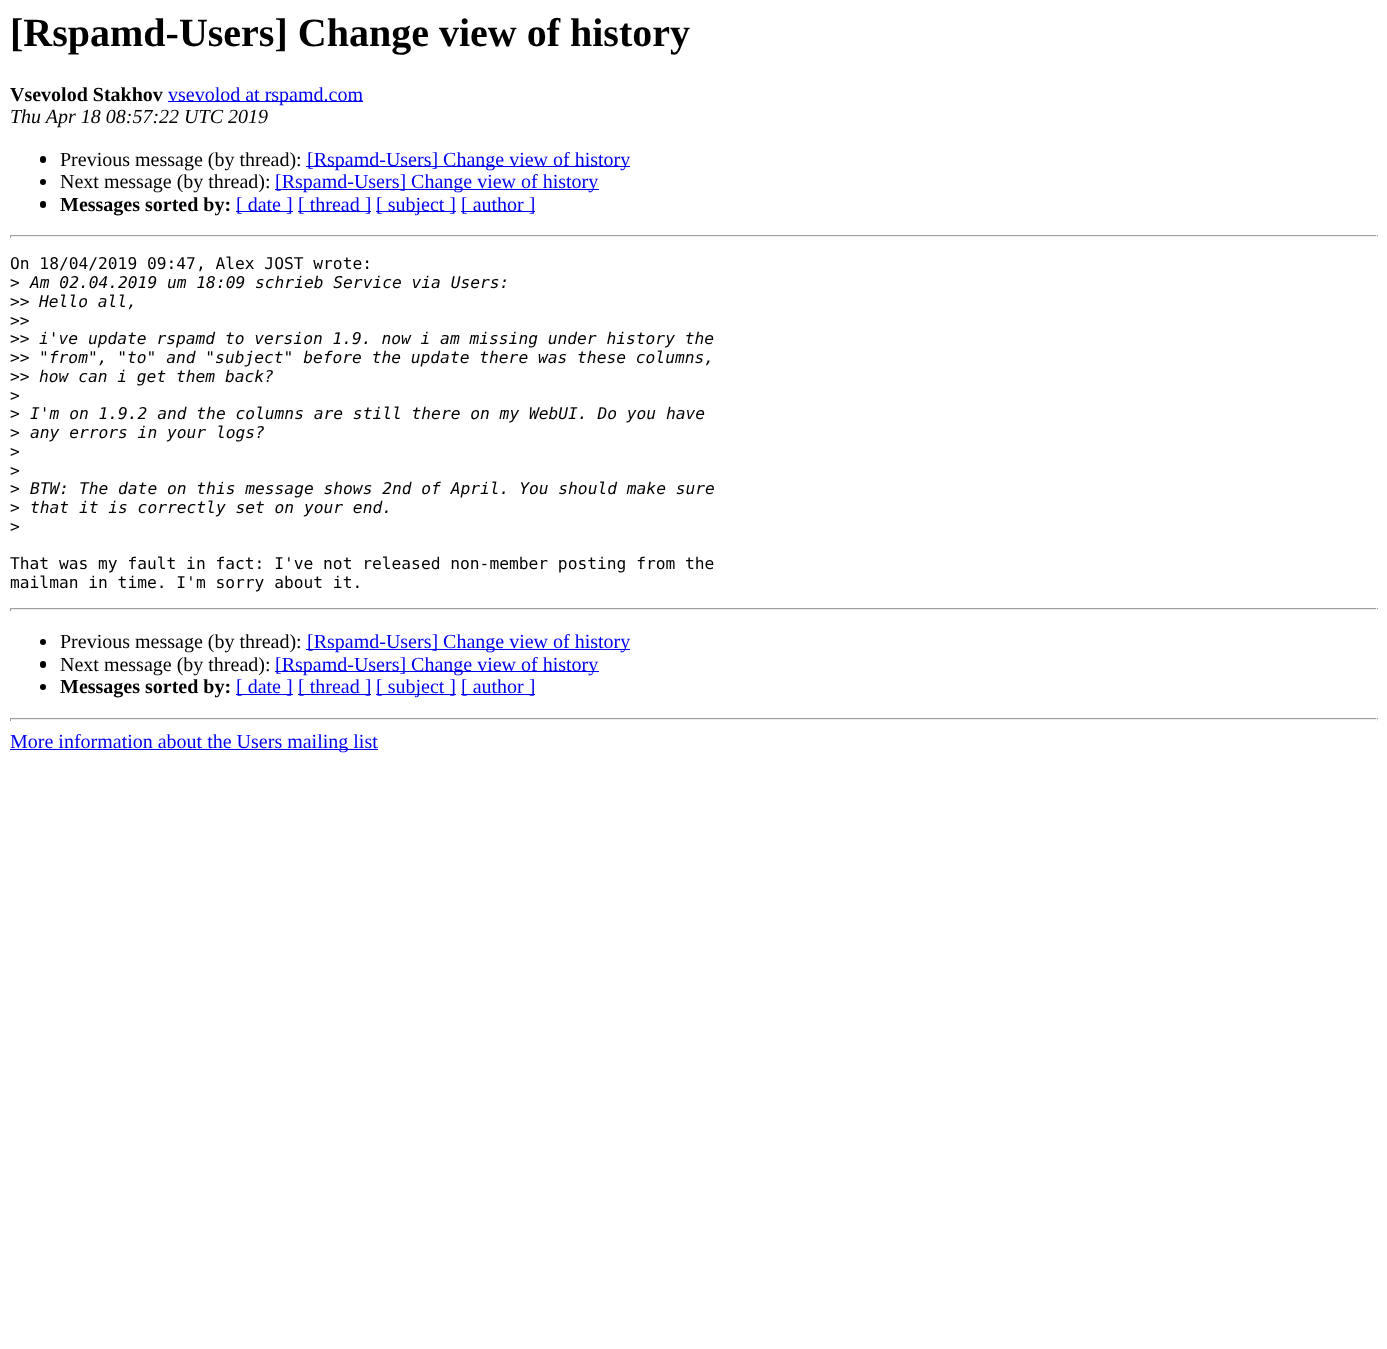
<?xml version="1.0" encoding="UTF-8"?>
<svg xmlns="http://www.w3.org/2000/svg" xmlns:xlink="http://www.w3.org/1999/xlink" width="1387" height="1349">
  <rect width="100%" height="100%" fill="#ffffff" />
  <rect x="168" y="101" width="195" height="1" fill="#0000ee" />
  <rect x="40" y="156" width="6" height="7" rx="3" fill="#000000" />
  <rect x="306" y="166" width="324" height="1" fill="#0000ee" />
  <circle cx="43" cy="182" r="3" fill="#000000" />
  <rect x="275" y="189" width="324" height="1" fill="#0000ee" />
  <rect x="40" y="201" width="6" height="7" rx="3" fill="#000000" />
  <rect x="236" y="211" width="57" height="1" fill="#0000ee" />
  <rect x="298" y="211" width="73" height="1" fill="#0000ee" />
  <rect x="376" y="211" width="80" height="1" fill="#0000ee" />
  <rect x="461" y="211" width="74" height="1" fill="#0000ee" />
  <rect x="10" y="235" width="1368" height="1" fill="#9f9f9f" />
  <rect x="1376" y="235" width="1" height="3" fill="#eeeeee" />
  <rect x="10" y="236" width="1368" height="1" fill="#eeeeee" />
  <rect x="10" y="235" width="1" height="3" fill="#9f9f9f" />
  <rect x="10" y="608" width="1368" height="1" fill="#9f9f9f" />
  <rect x="1376" y="608" width="1" height="3" fill="#eeeeee" />
  <rect x="10" y="609" width="1368" height="1" fill="#eeeeee" />
  <rect x="10" y="608" width="1" height="3" fill="#9f9f9f" />
  <circle cx="43" cy="642" r="3" fill="#000000" />
  <rect x="306" y="649" width="324" height="1" fill="#0000ee" />
  <rect x="40" y="661" width="6" height="7" rx="3" fill="#000000" />
  <rect x="275" y="671" width="324" height="1" fill="#0000ee" />
  <circle cx="43" cy="687" r="3" fill="#000000" />
  <rect x="236" y="694" width="57" height="1" fill="#0000ee" />
  <rect x="298" y="694" width="73" height="1" fill="#0000ee" />
  <rect x="376" y="694" width="80" height="1" fill="#0000ee" />
  <rect x="461" y="694" width="74" height="1" fill="#0000ee" />
  <rect x="10" y="718" width="1368" height="1" fill="#9f9f9f" />
  <rect x="1376" y="718" width="1" height="3" fill="#eeeeee" />
  <rect x="10" y="719" width="1368" height="1" fill="#eeeeee" />
  <rect x="10" y="718" width="1" height="3" fill="#9f9f9f" />
  <rect x="10" y="749" width="368" height="1" fill="#0000ee" />
  <text x="10" y="46" style="font-family: Liberation Serif; font-size: 40px; font-weight: bold; fill: #000000">[Rspamd-Users] Change view of history</text>
  <text x="10" y="101" style="font-family: Liberation Serif; font-size: 20px; font-weight: bold; fill: #000000">Vsevolod Stakhov</text>
  <text x="168" y="101" style="font-family: Liberation Serif; font-size: 20px; fill: #0000ee">vsevolod at rspamd.com</text>
  <text x="10" y="123" style="font-family: Liberation Serif; font-size: 20px; font-style: italic; fill: #000000">Thu Apr 18 08:57:22 UTC 2019</text>
  <text x="60" y="166" style="font-family: Liberation Serif; font-size: 20px; fill: #000000">Previous message (by thread):</text>
  <text x="307" y="166" style="font-family: Liberation Serif; font-size: 20px; fill: #0000ee">[Rspamd-Users] Change view of history</text>
  <text x="60" y="188" style="font-family: Liberation Serif; font-size: 20px; fill: #000000">Next message (by thread):</text>
  <text x="275" y="188" style="font-family: Liberation Serif; font-size: 20px; fill: #0000ee">[Rspamd-Users] Change view of history</text>
  <text x="60" y="211" style="font-family: Liberation Serif; font-size: 20px; font-weight: bold; fill: #000000">Messages sorted by:</text>
  <text x="236" y="211" style="font-family: Liberation Serif; font-size: 20px; fill: #0000ee">[ date ]</text>
  <text x="298" y="211" style="font-family: Liberation Serif; font-size: 20px; fill: #0000ee">[ thread ]</text>
  <text x="376" y="211" style="font-family: Liberation Serif; font-size: 20px; fill: #0000ee">[ subject ]</text>
  <text x="461" y="211" style="font-family: Liberation Serif; font-size: 20px; fill: #0000ee">[ author ]</text>
  <text x="10" y="269" style="font-family: DejaVu Sans Mono; font-size: 16.25px; fill: #000000">On 18/04/2019 09:47, Alex JOST wrote:</text>
  <text x="10" y="288" style="font-family: DejaVu Sans Mono; font-size: 16.25px; fill: #000000">&gt;</text>
  <text x="30" y="288" style="font-family: DejaVu Sans Mono; font-size: 16.25px; font-style: italic; fill: #000000">Am 02.04.2019 um 18:09 schrieb Service via Users:</text>
  <text x="10" y="307" style="font-family: DejaVu Sans Mono; font-size: 16.25px; fill: #000000">&gt;&gt;</text>
  <text x="39" y="307" style="font-family: DejaVu Sans Mono; font-size: 16.25px; font-style: italic; fill: #000000">Hello all,</text>
  <text x="10" y="326" style="font-family: DejaVu Sans Mono; font-size: 16.25px; fill: #000000">&gt;&gt;</text>
  <text x="10" y="344" style="font-family: DejaVu Sans Mono; font-size: 16.25px; fill: #000000">&gt;&gt;</text>
  <text x="39" y="344" style="font-family: DejaVu Sans Mono; font-size: 16.25px; font-style: italic; fill: #000000">i've update rspamd to version 1.9. now i am missing under history the</text>
  <text x="10" y="363" style="font-family: DejaVu Sans Mono; font-size: 16.25px; fill: #000000">&gt;&gt;</text>
  <text x="39" y="363" style="font-family: DejaVu Sans Mono; font-size: 16.25px; font-style: italic; fill: #000000">"from", "to" and "subject" before the update there was these columns,</text>
  <text x="10" y="382" style="font-family: DejaVu Sans Mono; font-size: 16.25px; fill: #000000">&gt;&gt;</text>
  <text x="39" y="382" style="font-family: DejaVu Sans Mono; font-size: 16.25px; font-style: italic; fill: #000000">how can i get them back?</text>
  <text x="10" y="401" style="font-family: DejaVu Sans Mono; font-size: 16.25px; fill: #000000">&gt;</text>
  <text x="10" y="419" style="font-family: DejaVu Sans Mono; font-size: 16.25px; fill: #000000">&gt;</text>
  <text x="30" y="419" style="font-family: DejaVu Sans Mono; font-size: 16.25px; font-style: italic; fill: #000000">I'm on 1.9.2 and the columns are still there on my WebUI. Do you have</text>
  <text x="10" y="438" style="font-family: DejaVu Sans Mono; font-size: 16.25px; fill: #000000">&gt;</text>
  <text x="30" y="438" style="font-family: DejaVu Sans Mono; font-size: 16.25px; font-style: italic; fill: #000000">any errors in your logs?</text>
  <text x="10" y="457" style="font-family: DejaVu Sans Mono; font-size: 16.25px; fill: #000000">&gt;</text>
  <text x="10" y="476" style="font-family: DejaVu Sans Mono; font-size: 16.25px; fill: #000000">&gt;</text>
  <text x="10" y="494" style="font-family: DejaVu Sans Mono; font-size: 16.25px; fill: #000000">&gt;</text>
  <text x="30" y="494" style="font-family: DejaVu Sans Mono; font-size: 16.25px; font-style: italic; fill: #000000">BTW: The date on this message shows 2nd of April. You should make sure</text>
  <text x="10" y="513" style="font-family: DejaVu Sans Mono; font-size: 16.25px; fill: #000000">&gt;</text>
  <text x="30" y="513" style="font-family: DejaVu Sans Mono; font-size: 16.25px; font-style: italic; fill: #000000">that it is correctly set on your end.</text>
  <text x="10" y="532" style="font-family: DejaVu Sans Mono; font-size: 16.25px; fill: #000000">&gt;</text>
  <text x="10" y="569" style="font-family: DejaVu Sans Mono; font-size: 16.25px; fill: #000000">That was my fault in fact: I've not released non-member posting from the</text>
  <text x="10" y="588" style="font-family: DejaVu Sans Mono; font-size: 16.25px; fill: #000000">mailman in time. I'm sorry about it.</text>
  <text x="60" y="648" style="font-family: Liberation Serif; font-size: 20px; fill: #000000">Previous message (by thread):</text>
  <text x="307" y="648" style="font-family: Liberation Serif; font-size: 20px; fill: #0000ee">[Rspamd-Users] Change view of history</text>
  <text x="60" y="671" style="font-family: Liberation Serif; font-size: 20px; fill: #000000">Next message (by thread):</text>
  <text x="275" y="671" style="font-family: Liberation Serif; font-size: 20px; fill: #0000ee">[Rspamd-Users] Change view of history</text>
  <text x="60" y="693" style="font-family: Liberation Serif; font-size: 20px; font-weight: bold; fill: #000000">Messages sorted by:</text>
  <text x="236" y="693" style="font-family: Liberation Serif; font-size: 20px; fill: #0000ee">[ date ]</text>
  <text x="298" y="693" style="font-family: Liberation Serif; font-size: 20px; fill: #0000ee">[ thread ]</text>
  <text x="376" y="693" style="font-family: Liberation Serif; font-size: 20px; fill: #0000ee">[ subject ]</text>
  <text x="461" y="693" style="font-family: Liberation Serif; font-size: 20px; fill: #0000ee">[ author ]</text>
  <text x="10" y="748" style="font-family: Liberation Serif; font-size: 20px; fill: #0000ee">More information about the Users mailing list</text>
</svg>
